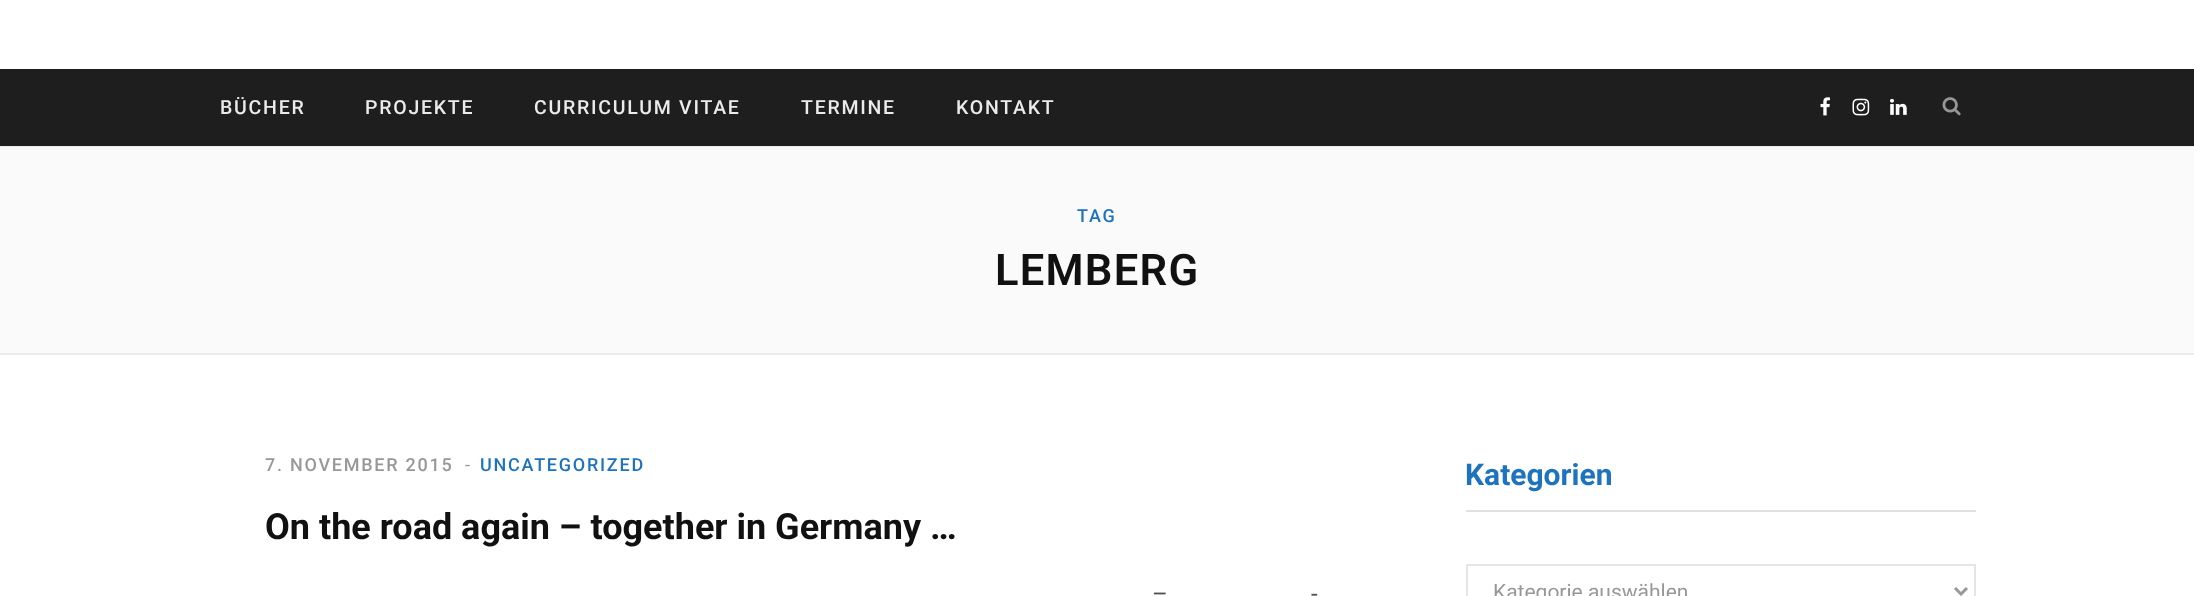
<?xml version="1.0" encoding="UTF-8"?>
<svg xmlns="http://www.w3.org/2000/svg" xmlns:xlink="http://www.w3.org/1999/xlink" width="2194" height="596">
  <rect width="100%" height="100%" fill="#ffffff" />
  <rect y="146" width="2194" height="1" fill="#ebebeb" />
  <rect y="69" width="2194" height="77" fill="#1e1e1e" />
  <image x="1820" y="97" width="10" height="19" xlink:href="image1.png" />
  <image x="1852" y="98" width="18" height="18" xlink:href="image2.png" />
  <image x="1890" y="98" width="17" height="17" xlink:href="image3.png" />
  <image x="1942" y="97" width="19" height="19" xlink:href="image4.png" />
  <rect y="147" width="2194" height="206" fill="#fafafa" />
  <rect y="353" width="2194" height="2" fill="#ebebeb" />
  <rect x="1466" y="510" width="510" height="2" fill="#e1e1e1" />
  <rect x="1467" y="565" width="508" height="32" fill="none" stroke="#e5e5e5" stroke-width="2" />
  <path d="M 1955 588 l 6 6 l 6 -6" fill="none" stroke="#989898" stroke-width="3" />
  <text x="220" y="114" style="font-family: Roboto; font-size: 19.5px; font-weight: 500; letter-spacing: 1.75px; fill: #ebebeb">BÜCHER</text>
  <text x="365" y="114" style="font-family: Roboto; font-size: 19.5px; font-weight: 500; letter-spacing: 1.75px; fill: #ebebeb">PROJEKTE</text>
  <text x="534" y="114" style="font-family: Roboto; font-size: 19.5px; font-weight: 500; letter-spacing: 1.75px; fill: #ebebeb">CURRICULUM VITAE</text>
  <text x="801" y="114" style="font-family: Roboto; font-size: 19.5px; font-weight: 500; letter-spacing: 1.75px; fill: #ebebeb">TERMINE</text>
  <text x="956" y="114" style="font-family: Roboto; font-size: 19.5px; font-weight: 500; letter-spacing: 1.75px; fill: #ebebeb">KONTAKT</text>
  <text x="1077" y="222" style="font-family: Roboto; font-size: 18px; font-weight: 500; letter-spacing: 1.75px; fill: #1e73be">TAG</text>
  <text x="995" y="285" style="font-family: Roboto; font-size: 43.5px; font-weight: 600; letter-spacing: 1.25px; fill: #111111">LEMBERG</text>
  <text x="265" y="471" style="font-family: Roboto; font-size: 18px; font-weight: 500; letter-spacing: 1.75px; fill: #989898">7. NOVEMBER 2015</text>
  <text x="465" y="471" style="font-family: Roboto; font-size: 18px; fill: #989898">-</text>
  <text x="480" y="471" style="font-family: Roboto; font-size: 18px; font-weight: 500; letter-spacing: 1.75px; fill: #1e73be">UNCATEGORIZED</text>
  <text x="265" y="539" style="font-family: Roboto; font-size: 36px; font-weight: bold; fill: #111111">On the road again – together in Germany …</text>
  <text x="1152" y="602" style="font-family: Roboto; font-size: 24px; fill: #505050">–</text>
  <text x="1311" y="602" style="font-family: Roboto; font-size: 24px; fill: #505050">-</text>
  <text x="1465" y="485" style="font-family: Roboto; font-size: 30px; font-weight: bold; fill: #1e73be">Kategorien</text>
  <text x="1493" y="599" style="font-family: Roboto; font-size: 21px; fill: #989898">Kategorie auswählen</text>
</svg>
